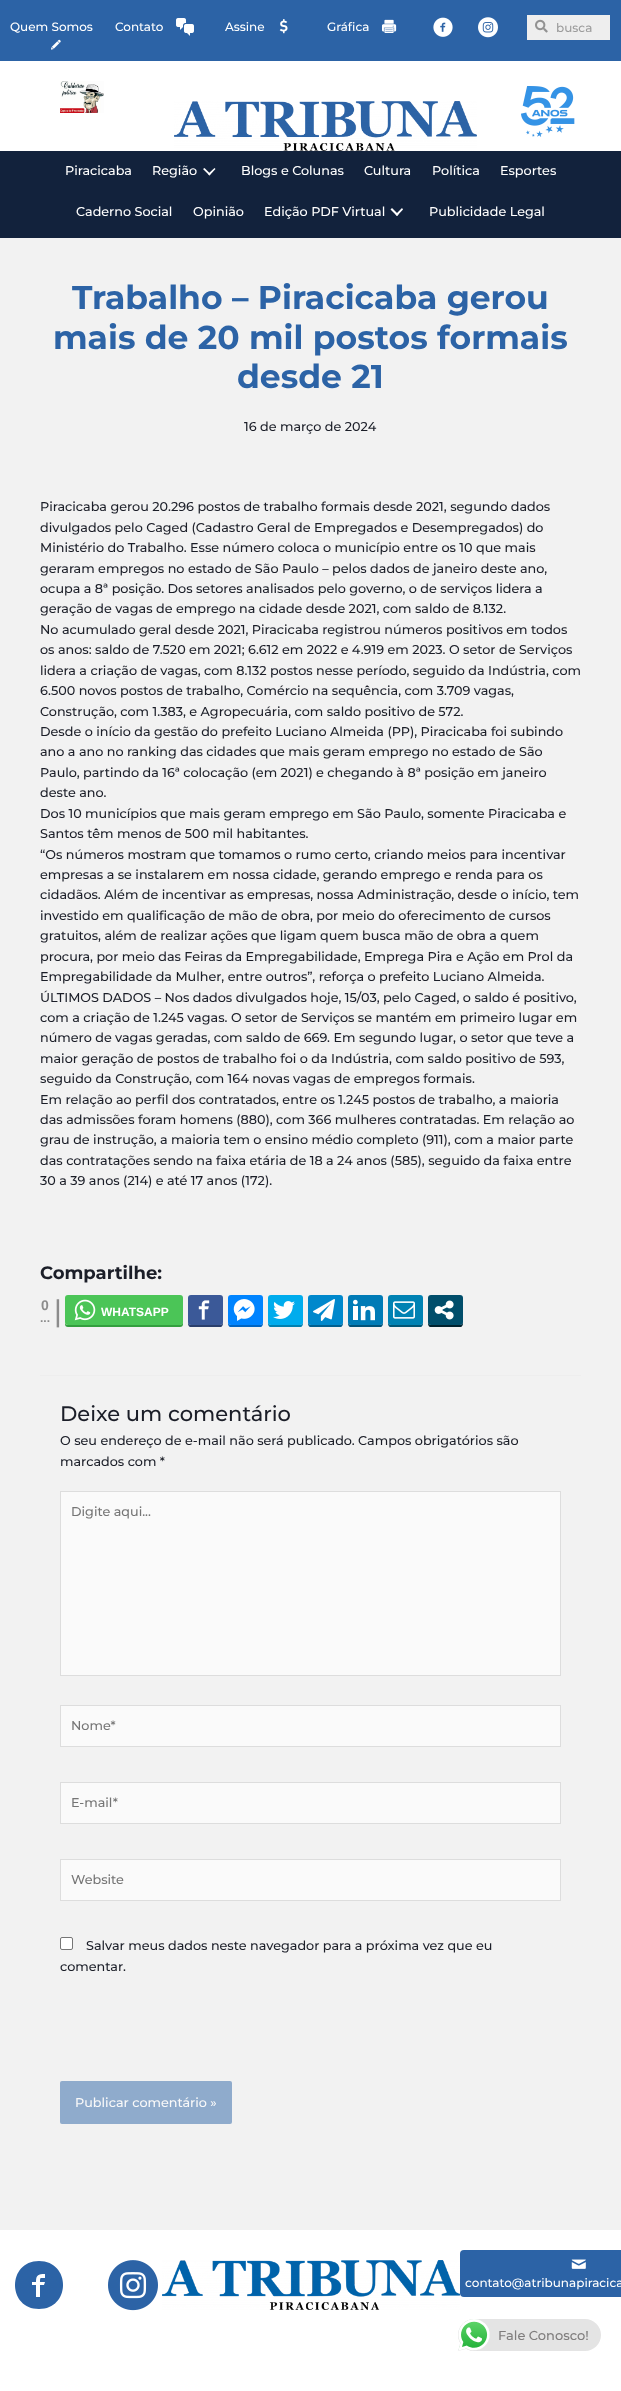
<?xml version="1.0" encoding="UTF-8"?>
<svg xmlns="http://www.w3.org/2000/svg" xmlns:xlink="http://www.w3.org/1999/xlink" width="621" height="2391">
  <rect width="100%" height="100%" fill="#f2f2f2" />
  <rect width="621" height="61" fill="#2c63a6" />
  <image x="51" y="39" width="10" height="11" xlink:href="image1.png" />
  <image x="176" y="18" width="18" height="18" xlink:href="image2.png" />
  <image x="279" y="19" width="9" height="15" xlink:href="image3.png" />
  <image x="381" y="19" width="16" height="14" xlink:href="image4.png" />
  <image x="433" y="17" width="20" height="20" xlink:href="image5.png" />
  <image x="478" y="17" width="20" height="21" xlink:href="image6.png" />
  <rect x="527" y="15" width="83" height="25" fill="#eeeeee" />
  <image x="535" y="19" width="13" height="14" xlink:href="image7.png" />
  <rect y="61" width="621" height="90" fill="#ffffff" />
  <image x="60" y="81" width="44" height="32" xlink:href="image8.png" />
  <image x="174" y="101" width="303" height="50" xlink:href="image9.png" />
  <image x="521" y="86" width="54" height="51" xlink:href="image10.png" />
  <rect y="151" width="621" height="87" fill="#12223c" />
  <path d="M 214.5 168 l 1 1 l -6 6.5 l -1.5 -1.5 z" fill="#ffffff" />
  <path d="M 204.5 168 l 6 6 l -1 1.5 l -6.5 -6.5 z" fill="#ffffff" />
  <path d="M 402 208 l 1 1.5 l -6 6.5 l -1.5 -1.5 z" fill="#ffffff" />
  <path d="M 392 208 l 6.5 6.5 l -1.5 1.5 l -6.5 -6.5 z" fill="#ffffff" />
  <path d="M 65 1322 v 2 c 0 2 1 3 3 3 h 112 c 2 0 3 -1 3 -3 v -2 l -1 2 l -2 1 h -112 c -2 0 -3 -1 -3 -3 z" fill="#339f3e" />
  <rect x="65" y="1295" width="118" height="30" rx="3" fill="#4bc557" />
  <image x="74" y="1299" width="22" height="22" xlink:href="image11.png" />
  <path d="M 188 1322 c 0 6 2 5 8 5 h 19 c 6 0 8 1 8 -5 c 0 1.5 -1.5 3 -3 3 h -29 c -1.5 0 -3 -1.5 -3 -3 z" fill="#2a3f6c" />
  <rect x="188" y="1295" width="35" height="30" rx="3" fill="#3b5998" />
  <image x="198" y="1300" width="12" height="20" xlink:href="image12.png" />
  <path d="M 228 1322 c 0 6 2 5 8 5 h 19 c 6 0 8 1 8 -5 c 0 1.5 -1.5 3 -3 3 h -29 c -1.5 0 -3 -1.5 -3 -3 z" fill="#0064c2" />
  <rect x="228" y="1295" width="35" height="30" rx="3" fill="#0084ff" />
  <image x="233" y="1299" width="22" height="22" xlink:href="image13.png" />
  <path d="M 268 1322 c 0 6 2 5 8 5 h 19 c 6 0 8 1 8 -5 c 0 1.5 -1.5 3 -3 3 h -29 c -1.5 0 -3 -1.5 -3 -3 z" fill="#0080b0" />
  <rect x="268" y="1295" width="35" height="30" rx="3" fill="#00aced" />
  <image x="273" y="1301" width="22" height="18" xlink:href="image14.png" />
  <path d="M 308 1322 c 0 6 2 5 8 5 h 19 c 6 0 8 1 8 -5 c 0 1.5 -1.5 3 -3 3 h -29 c -1.5 0 -3 -1.5 -3 -3 z" fill="#005f8f" />
  <rect x="308" y="1295" width="35" height="30" rx="3" fill="#0088cc" />
  <image x="313" y="1299" width="22" height="22" xlink:href="image15.png" />
  <path d="M 348 1322 c 0 6 2 5 8 5 h 19 c 6 0 8 1 8 -5 c 0 1.5 -1.5 3 -3 3 h -29 c -1.5 0 -3 -1.5 -3 -3 z" fill="#005279" />
  <rect x="348" y="1295" width="35" height="30" rx="3" fill="#007bb6" />
  <image x="353" y="1299" width="22" height="22" xlink:href="image16.png" />
  <path d="M 388 1322 c 0 6 2 5 8 5 h 19 c 6 0 8 1 8 -5 c 0 1.5 -1.5 3 -3 3 h -29 c -1.5 0 -3 -1.5 -3 -3 z" fill="#005676" />
  <rect x="388" y="1295" width="35" height="30" rx="3" fill="#0082b3" />
  <image x="393" y="1301" width="22" height="18" xlink:href="image17.png" />
  <path d="M 428 1322 c 0 6 2 5 8 5 h 19 c 6 0 8 1 8 -5 c 0 1.5 -1.5 3 -3 3 h -29 c -1.5 0 -3 -1.5 -3 -3 z" fill="#00222e" />
  <rect x="428" y="1295" width="35" height="30" rx="3" fill="#014e6b" />
  <image x="434" y="1300" width="20" height="20" xlink:href="image18.png" />
  <rect x="40" y="1375" width="541" height="1" fill="#eeeeee" />
  <rect x="60.5" y="1491.5" width="500" height="184" fill="#fafafa" stroke="#dddddd" />
  <rect x="60.5" y="1705.5" width="500" height="41" fill="#fafafa" stroke="#dddddd" />
  <rect x="60.5" y="1782.5" width="500" height="41" fill="#fafafa" stroke="#dddddd" />
  <rect x="60.5" y="1859.5" width="500" height="41" fill="#fafafa" stroke="#dddddd" />
  <rect x="60.5" y="1937.5" width="12" height="12" rx="1.5" fill="#ffffff" stroke="#767676" />
  <rect x="60" y="2081" width="172" height="43" rx="2" fill="#8fabcc" />
  <rect y="2230" width="621" height="161" fill="#ffffff" />
  <path d="M 39 2261 c -32 0 -32 48 0 48 c 32 0 32 -48 0 -48 z m 6 17 c -5 0 -5 -1 -5 4 h 5 l -1 3 h -4 v 12 h -4 v -12 h -4 v -3 h 4 c 0 -7 2 -8 9 -8 z" fill="#2c63a6" />
  <image x="108" y="2260" width="50" height="51" xlink:href="image19.png" />
  <image x="162" y="2260" width="298" height="50" xlink:href="image20.png" />
  <rect x="460" y="2250" width="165" height="47" rx="4" fill="#2c63a6" />
  <image x="571" y="2259" width="15" height="10" xlink:href="image21.png" />
  <rect x="458" y="2319" width="143" height="32" rx="16" fill="#e4e4e4" />
  <image x="458" y="2319" width="32" height="32" xlink:href="image22.png" />
  <text x="10" y="31" style="font-family: Montserrat; font-size: 12px; font-weight: 500; fill: #ffffff">Quem Somos</text>
  <text x="115" y="31" style="font-family: Montserrat; font-size: 12px; font-weight: 500; fill: #ffffff">Contato</text>
  <text x="225" y="31" style="font-family: Montserrat; font-size: 12px; font-weight: 500; fill: #ffffff">Assine</text>
  <text x="327" y="31" style="font-family: Montserrat; font-size: 12px; font-weight: 500; fill: #ffffff">Gráfica</text>
  <text x="556" y="32" style="font-family: Montserrat; font-size: 12px; font-weight: 500; fill: #9c9c9c">busca</text>
  <text x="65" y="175" style="font-family: Montserrat; font-size: 12.75px; font-weight: 500; fill: #ffffff">Piracicaba</text>
  <text x="152" y="175" style="font-family: Montserrat; font-size: 12.75px; font-weight: 500; fill: #ffffff">Região</text>
  <text x="241" y="175" style="font-family: Montserrat; font-size: 12.75px; font-weight: 500; fill: #ffffff">Blogs e Colunas</text>
  <text x="364" y="175" style="font-family: Montserrat; font-size: 12.75px; font-weight: 500; fill: #ffffff">Cultura</text>
  <text x="432" y="175" style="font-family: Montserrat; font-size: 12.75px; font-weight: 500; fill: #ffffff">Política</text>
  <text x="500" y="175" style="font-family: Montserrat; font-size: 12.75px; font-weight: 500; fill: #ffffff">Esportes</text>
  <text x="76" y="216" style="font-family: Montserrat; font-size: 12.75px; font-weight: 500; fill: #ffffff">Caderno Social</text>
  <text x="193" y="216" style="font-family: Montserrat; font-size: 12.75px; font-weight: 500; fill: #ffffff">Opinião</text>
  <text x="264" y="216" style="font-family: Montserrat; font-size: 12.75px; font-weight: 500; fill: #ffffff">Edição PDF Virtual</text>
  <text x="429" y="216" style="font-family: Montserrat; font-size: 12.75px; font-weight: 500; fill: #ffffff">Publicidade Legal</text>
  <text x="72" y="309" style="font-family: Montserrat; font-size: 33px; font-weight: bold; fill: #2c63a6">Trabalho – Piracicaba gerou</text>
  <text x="53" y="349" style="font-family: Montserrat; font-size: 33px; font-weight: bold; fill: #2c63a6">mais de 20 mil postos formais</text>
  <text x="237" y="388" style="font-family: Montserrat; font-size: 33px; font-weight: bold; fill: #2c63a6">desde 21</text>
  <text x="244" y="431" style="font-family: Montserrat; font-size: 12.75px; font-weight: 500; fill: #1b1e28">16 de março de 2024</text>
  <text x="40" y="511" style="font-family: Montserrat; font-size: 12.75px; font-weight: 500; fill: #1b1e28">Piracicaba gerou 20.296 postos de trabalho formais desde 2021, segundo dados</text>
  <text x="40" y="532" style="font-family: Montserrat; font-size: 12.75px; font-weight: 500; fill: #1b1e28">divulgados pelo Caged (Cadastro Geral de Empregados e Desempregados) do</text>
  <text x="40" y="552" style="font-family: Montserrat; font-size: 12.75px; font-weight: 500; fill: #1b1e28">Ministério do Trabalho. Esse número coloca o município entre os 10 que mais</text>
  <text x="40" y="573" style="font-family: Montserrat; font-size: 12.75px; font-weight: 500; fill: #1b1e28">geraram empregos no estado de São Paulo – pelos dados de janeiro deste ano,</text>
  <text x="40" y="593" style="font-family: Montserrat; font-size: 12.75px; font-weight: 500; fill: #1b1e28">ocupa a 8ª posição. Dos setores analisados pelo governo, o de serviços lidera a</text>
  <text x="40" y="613" style="font-family: Montserrat; font-size: 12.75px; font-weight: 500; fill: #1b1e28">geração de vagas de emprego na cidade desde 2021, com saldo de 8.132.</text>
  <text x="40" y="634" style="font-family: Montserrat; font-size: 12.75px; font-weight: 500; fill: #1b1e28">No acumulado geral desde 2021, Piracicaba registrou números positivos em todos</text>
  <text x="40" y="654" style="font-family: Montserrat; font-size: 12.75px; font-weight: 500; fill: #1b1e28">os anos: saldo de 7.520 em 2021; 6.612 em 2022 e 4.919 em 2023. O setor de Serviços</text>
  <text x="40" y="675" style="font-family: Montserrat; font-size: 12.75px; font-weight: 500; fill: #1b1e28">lidera a criação de vagas, com 8.132 postos nesse período, seguido da Indústria, com</text>
  <text x="40" y="695" style="font-family: Montserrat; font-size: 12.75px; font-weight: 500; fill: #1b1e28">6.500 novos postos de trabalho, Comércio na sequência, com 3.709 vagas,</text>
  <text x="40" y="716" style="font-family: Montserrat; font-size: 12.75px; font-weight: 500; fill: #1b1e28">Construção, com 1.383, e Agropecuária, com saldo positivo de 572.</text>
  <text x="40" y="736" style="font-family: Montserrat; font-size: 12.75px; font-weight: 500; fill: #1b1e28">Desde o início da gestão do prefeito Luciano Almeida (PP), Piracicaba foi subindo</text>
  <text x="40" y="756" style="font-family: Montserrat; font-size: 12.75px; font-weight: 500; fill: #1b1e28">ano a ano no ranking das cidades que mais geram emprego no estado de São</text>
  <text x="40" y="777" style="font-family: Montserrat; font-size: 12.75px; font-weight: 500; fill: #1b1e28">Paulo, partindo da 16ª colocação (em 2021) e chegando à 8ª posição em janeiro</text>
  <text x="40" y="797" style="font-family: Montserrat; font-size: 12.75px; font-weight: 500; fill: #1b1e28">deste ano.</text>
  <text x="40" y="818" style="font-family: Montserrat; font-size: 12.75px; font-weight: 500; fill: #1b1e28">Dos 10 municípios que mais geram emprego em São Paulo, somente Piracicaba e</text>
  <text x="40" y="838" style="font-family: Montserrat; font-size: 12.75px; font-weight: 500; fill: #1b1e28">Santos têm menos de 500 mil habitantes.</text>
  <text x="40" y="859" style="font-family: Montserrat; font-size: 12.75px; font-weight: 500; fill: #1b1e28">“Os números mostram que tomamos o rumo certo, criando meios para incentivar</text>
  <text x="40" y="879" style="font-family: Montserrat; font-size: 12.75px; font-weight: 500; fill: #1b1e28">empresas a se instalarem em nossa cidade, gerando emprego e renda para os</text>
  <text x="40" y="899" style="font-family: Montserrat; font-size: 12.75px; font-weight: 500; fill: #1b1e28">cidadãos. Além de incentivar as empresas, nossa Administração, desde o início, tem</text>
  <text x="40" y="920" style="font-family: Montserrat; font-size: 12.75px; font-weight: 500; fill: #1b1e28">investido em qualificação de mão de obra, por meio do oferecimento de cursos</text>
  <text x="40" y="940" style="font-family: Montserrat; font-size: 12.75px; font-weight: 500; fill: #1b1e28">gratuitos, além de realizar ações que ligam quem busca mão de obra a quem</text>
  <text x="40" y="961" style="font-family: Montserrat; font-size: 12.75px; font-weight: 500; fill: #1b1e28">procura, por meio das Feiras da Empregabilidade, Emprega Pira e Ação em Prol da</text>
  <text x="40" y="981" style="font-family: Montserrat; font-size: 12.75px; font-weight: 500; fill: #1b1e28">Empregabilidade da Mulher, entre outros”, reforça o prefeito Luciano Almeida.</text>
  <text x="40" y="1002" style="font-family: Montserrat; font-size: 12.75px; font-weight: 500; fill: #1b1e28">ÚLTIMOS DADOS – Nos dados divulgados hoje, 15/03, pelo Caged, o saldo é positivo,</text>
  <text x="40" y="1022" style="font-family: Montserrat; font-size: 12.75px; font-weight: 500; fill: #1b1e28">com a criação de 1.245 vagas. O setor de Serviços se mantém em primeiro lugar em</text>
  <text x="40" y="1042" style="font-family: Montserrat; font-size: 12.75px; font-weight: 500; fill: #1b1e28">número de vagas geradas, com saldo de 669. Em segundo lugar, o setor que teve a</text>
  <text x="40" y="1063" style="font-family: Montserrat; font-size: 12.75px; font-weight: 500; fill: #1b1e28">maior geração de postos de trabalho foi o da Indústria, com saldo positivo de 593,</text>
  <text x="40" y="1083" style="font-family: Montserrat; font-size: 12.75px; font-weight: 500; fill: #1b1e28">seguido da Construção, com 164 novas vagas de empregos formais.</text>
  <text x="40" y="1104" style="font-family: Montserrat; font-size: 12.75px; font-weight: 500; fill: #1b1e28">Em relação ao perfil dos contratados, entre os 1.245 postos de trabalho, a maioria</text>
  <text x="40" y="1124" style="font-family: Montserrat; font-size: 12.75px; font-weight: 500; fill: #1b1e28">das admissões foram homens (880), com 366 mulheres contratadas. Em relação ao</text>
  <text x="40" y="1144" style="font-family: Montserrat; font-size: 12.75px; font-weight: 500; fill: #1b1e28">grau de instrução, a maioria tem o ensino médio completo (911), com a maior parte</text>
  <text x="40" y="1165" style="font-family: Montserrat; font-size: 12.75px; font-weight: 500; fill: #1b1e28">das contratações sendo na faixa etária de 18 a 24 anos (585), seguido da faixa entre</text>
  <text x="40" y="1185" style="font-family: Montserrat; font-size: 12.75px; font-weight: 500; fill: #1b1e28">30 a 39 anos (214) e até 17 anos (172).</text>
  <text x="40" y="1279" style="font-family: Montserrat; font-size: 18px; font-weight: bold; fill: #1b1e28">Compartilhe:</text>
  <text x="41" y="1310" style="font-family: Liberation Sans; font-size: 14px; font-weight: bold; fill: #8c8c8c">0</text>
  <text x="54" y="1321" style="font-family: Liberation Sans; font-size: 30px; fill: #8c8c8c">|</text>
  <text x="40" y="1322" style="font-family: Liberation Sans; font-size: 12px; font-weight: bold; fill: #8c8c8c">...</text>
  <text x="101" y="1316" style="font-family: Liberation Sans; font-size: 12px; font-weight: bold; fill: #ffffff">WHATSAPP</text>
  <text x="60" y="1421" style="font-family: Montserrat; font-size: 21px; font-weight: 500; fill: #1b1e28">Deixe um comentário</text>
  <text x="60" y="1445" style="font-family: Montserrat; font-size: 12.75px; font-weight: 500; fill: #1b1e28">O seu endereço de e-mail não será publicado. Campos obrigatórios são</text>
  <text x="60" y="1466" style="font-family: Montserrat; font-size: 12.75px; font-weight: 500; fill: #1b1e28">marcados com *</text>
  <text x="71" y="1516" style="font-family: Montserrat; font-size: 12.75px; font-weight: 500; fill: #757575">Digite aqui...</text>
  <text x="71" y="1730" style="font-family: Montserrat; font-size: 12.75px; font-weight: 500; fill: #757575">Nome*</text>
  <text x="71" y="1807" style="font-family: Montserrat; font-size: 12.75px; font-weight: 500; fill: #757575">E-mail*</text>
  <text x="71" y="1884" style="font-family: Montserrat; font-size: 12.75px; font-weight: 500; fill: #757575">Website</text>
  <text x="86" y="1950" style="font-family: Montserrat; font-size: 12.75px; font-weight: 500; fill: #1b1e28">Salvar meus dados neste navegador para a próxima vez que eu</text>
  <text x="60" y="1971" style="font-family: Montserrat; font-size: 12.75px; font-weight: 500; fill: #1b1e28">comentar.</text>
  <text x="75" y="2107" style="font-family: Montserrat; font-size: 12.75px; font-weight: 500; fill: #f9f9f9">Publicar comentário »</text>
  <text x="465" y="2287" style="font-family: Montserrat; font-size: 12px; font-weight: 500; fill: #ffffff">contato@atribunapiracica</text>
  <text x="498" y="2340" style="font-family: Montserrat; font-size: 13px; font-weight: 500; fill: #7f7d7d">Fale Conosco!</text>
</svg>
